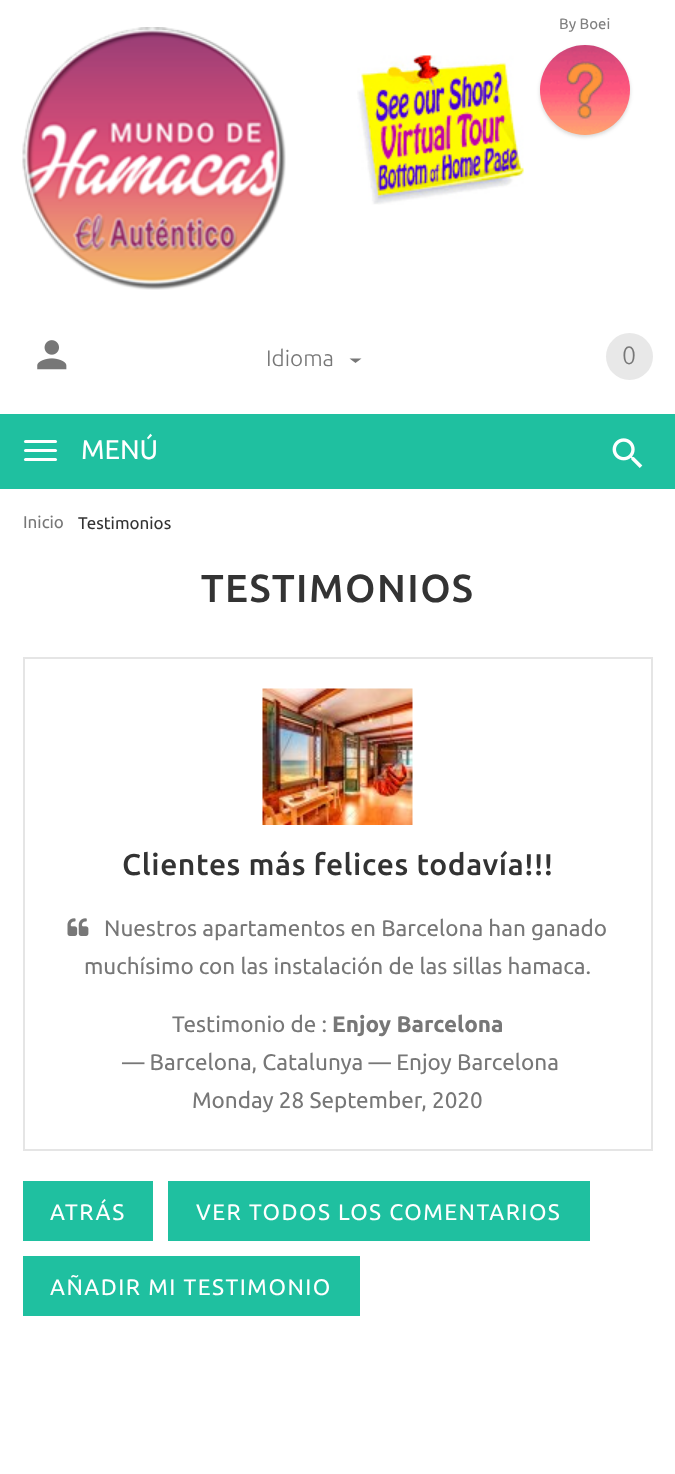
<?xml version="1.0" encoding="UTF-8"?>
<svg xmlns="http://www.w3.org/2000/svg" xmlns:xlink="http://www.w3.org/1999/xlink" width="675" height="1474">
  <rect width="100%" height="100%" fill="#ffffff" />
  <image x="22" y="27" width="264" height="263" xlink:href="image1.png" />
  <image x="357" y="55" width="167" height="150" xlink:href="image2.png" />
  <rect x="540" y="47" width="90" height="90" rx="45" fill="#000000" fill-opacity="0.06" filter="blur(1.5px)" />
  <rect x="540" y="47" width="90" height="90" rx="45" fill="#000000" fill-opacity="0.1" filter="blur(2px)" />
  <image x="540" y="45" width="90" height="90" xlink:href="image3.png" />
  <image x="37" y="340" width="30" height="30" xlink:href="image4.png" />
  <circle cx="629.5" cy="356.5" r="23.5" fill="#e8e8e8" />
  <rect y="414" width="675" height="75" fill="#1fc0a0" />
  <image x="612" y="438" width="31" height="30" xlink:href="image5.png" />
  <rect x="24" y="440" width="33" height="3" rx="1.5" fill="#ffffff" />
  <rect x="24" y="449" width="33" height="3" rx="1.5" fill="#ffffff" />
  <rect x="24" y="458" width="33" height="3" rx="1.5" fill="#ffffff" />
  <path d="M 349.5 358.5 h 12 l -6 4.5 z" fill="#777777" />
  <rect x="24" y="658" width="628" height="492" fill="none" stroke="#e5e5e5" stroke-width="2" />
  <image x="262" y="688" width="151" height="137" xlink:href="image6.png" />
  <image x="67" y="918" width="22" height="18" xlink:href="image7.png" />
  <rect x="23" y="1181" width="130" height="60" fill="#1fc0a0" />
  <rect x="168" y="1181" width="422" height="60" fill="#1fc0a0" />
  <rect x="23" y="1256" width="337" height="60" fill="#1fc0a0" />
  <text x="559" y="29" style="font-family: Ubuntu; font-size: 15px; fill: #808080">By Boei</text>
  <text x="622" y="364" style="font-family: Ubuntu; font-size: 25px; font-weight: 300; fill: #777777">0</text>
  <text x="81" y="459" style="font-family: Ubuntu; font-size: 27px; fill: #ffffff">MENÚ</text>
  <text x="266" y="366" style="font-family: Ubuntu; font-size: 22.5px; font-weight: 300; fill: #777777">Idioma</text>
  <text x="23" y="528" style="font-family: Ubuntu; font-size: 17px; fill: #777777">Inicio</text>
  <text x="78" y="529" style="font-family: Ubuntu; font-size: 17px; fill: #333333">Testimonios</text>
  <text x="201" y="602" style="font-family: Ubuntu; font-size: 39px; font-weight: 500; letter-spacing: 1.5px; fill: #333333">TESTIMONIOS</text>
  <text x="122" y="875" style="font-family: Ubuntu; font-size: 30px; font-weight: 500; letter-spacing: 0.6px; fill: #333333">Clientes más felices todavía!!!</text>
  <text x="104" y="936" style="font-family: Ubuntu; font-size: 22.5px; fill: #777777">Nuestros apartamentos en Barcelona han ganado</text>
  <text x="84" y="974" style="font-family: Ubuntu; font-size: 22.5px; fill: #777777">muchísimo con las instalación de las sillas hamaca.</text>
  <text x="172" y="1032" style="font-family: Ubuntu; font-size: 22.5px; fill: #777777">Testimonio de :</text>
  <text x="332" y="1032" style="font-family: Ubuntu; font-size: 22.5px; font-weight: bold; fill: #777777">Enjoy Barcelona</text>
  <text x="122" y="1070" style="font-family: Ubuntu; font-size: 22.5px; fill: #777777">— Barcelona, Catalunya — Enjoy Barcelona</text>
  <text x="192" y="1108" style="font-family: Ubuntu; font-size: 22.5px; fill: #777777">Monday 28 September, 2020</text>
  <text x="50" y="1220" style="font-family: Ubuntu; font-size: 22.5px; letter-spacing: 1.5px; fill: #ffffff">ATRÁS</text>
  <text x="196" y="1220" style="font-family: Ubuntu; font-size: 22.5px; letter-spacing: 1.5px; fill: #ffffff">VER TODOS LOS COMENTARIOS</text>
  <text x="50" y="1295" style="font-family: Ubuntu; font-size: 22.5px; letter-spacing: 1.5px; fill: #ffffff">AÑADIR MI TESTIMONIO</text>
</svg>
